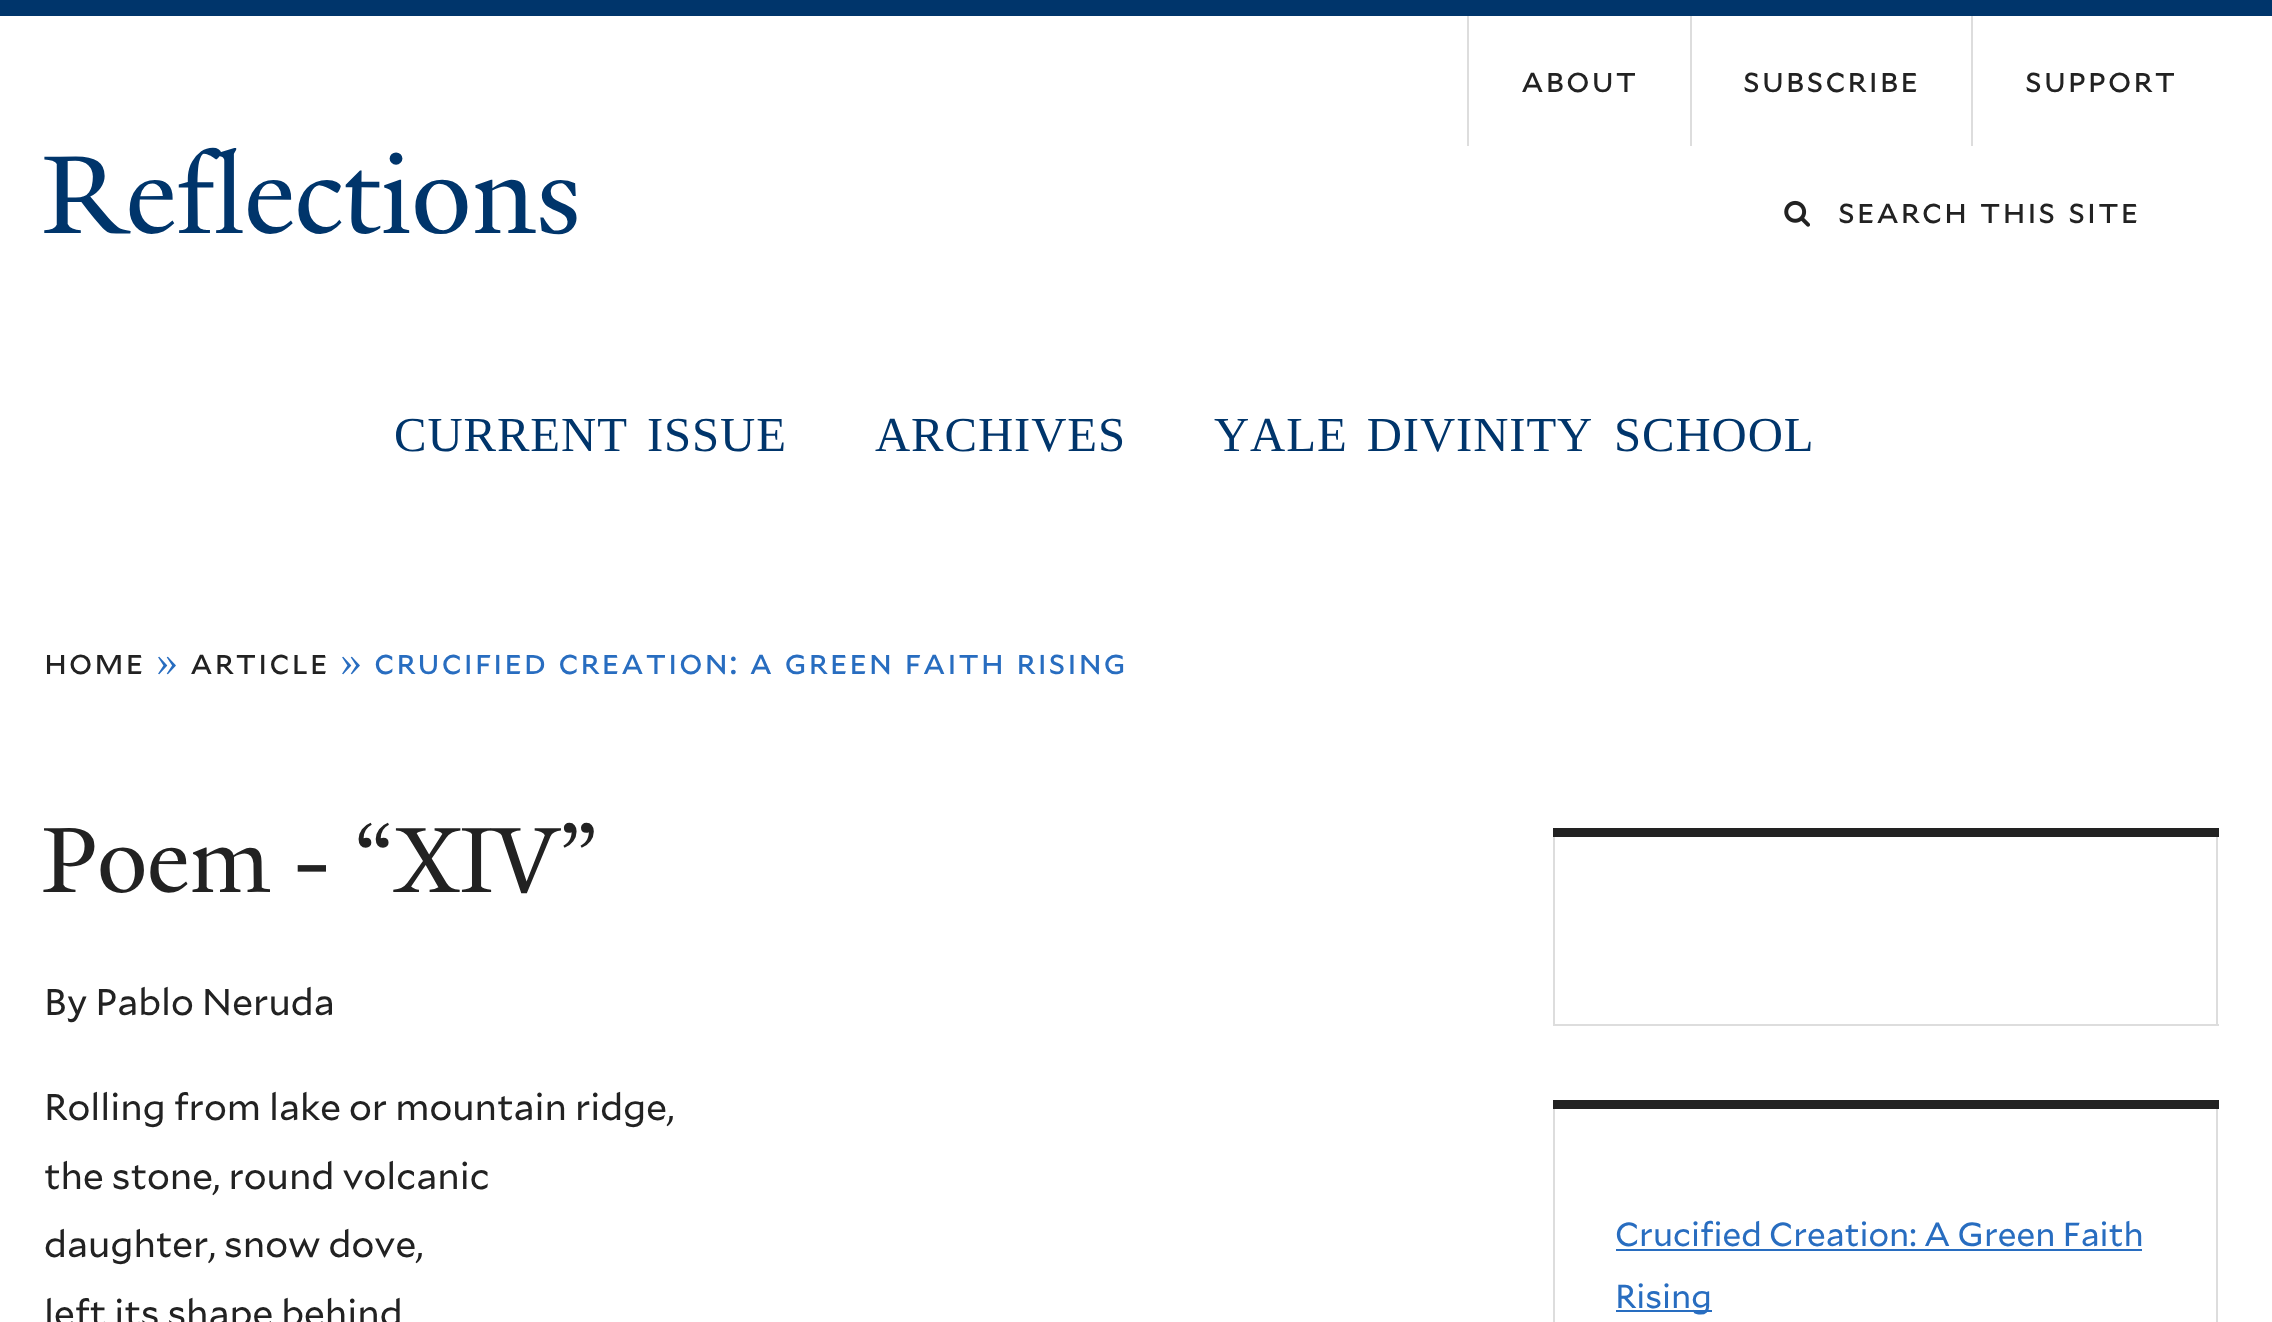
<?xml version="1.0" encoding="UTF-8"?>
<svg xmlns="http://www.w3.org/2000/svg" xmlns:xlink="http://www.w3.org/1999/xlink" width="2272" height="1322">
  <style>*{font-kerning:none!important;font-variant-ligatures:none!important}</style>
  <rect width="100%" height="100%" fill="#ffffff" />
  <rect width="2272" height="16" fill="#00356b" />
  <rect x="1467" y="16" width="2" height="130" fill="#dddddd" />
  <rect x="1690" y="16" width="2" height="130" fill="#dddddd" />
  <rect x="1971" y="16" width="2" height="130" fill="#dddddd" />
  <image x="1784" y="200" width="26" height="27" xlink:href="image1.png" />
  <rect x="1553" y="828" width="666" height="9" fill="#222222" />
  <rect x="2216" y="837" width="2" height="189" fill="#dddddd" />
  <rect x="1553" y="1024" width="666" height="2" fill="#dddddd" />
  <rect x="1553" y="837" width="2" height="189" fill="#dddddd" />
  <rect x="1553" y="1100" width="666" height="9" fill="#222222" />
  <rect x="2216" y="1109" width="2" height="213" fill="#dddddd" />
  <rect x="1553" y="1109" width="2" height="213" fill="#dddddd" />
  <rect x="1616" y="1249" width="526" height="2" fill="#286dc0" />
  <rect x="1616" y="1310" width="96" height="2" fill="#286dc0" />
  <text x="42" y="233" style="font-family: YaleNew; font-size: 120px; fill: #00356b">Reflections</text>
  <text x="1521" y="92" style="font-family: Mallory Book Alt; font-size: 34.25px; letter-spacing: 1.7px; fill: #222222">about</text>
  <text x="1743" y="92" style="font-family: Mallory Book Alt; font-size: 34.25px; letter-spacing: 1.7px; fill: #222222">subscribe</text>
  <text x="2025" y="92" style="font-family: Mallory Book Alt; font-size: 34.25px; letter-spacing: 1.7px; fill: #222222">support</text>
  <text x="1838" y="223" word-spacing="2" style="font-family: Mallory Book Alt; font-size: 34.25px; letter-spacing: 1.7px; fill: #222222">search this site</text>
  <text x="394" y="451" word-spacing="6" style="font-family: Liberation Serif; font-size: 48.75px; letter-spacing: 0.9px; fill: #00356b">CURRENT ISSUE</text>
  <text x="875" y="451" style="font-family: Liberation Serif; font-size: 48.75px; letter-spacing: 0.9px; fill: #00356b">ARCHIVES</text>
  <text x="1214" y="451" word-spacing="6" style="font-family: Liberation Serif; font-size: 48.75px; letter-spacing: 0.9px; fill: #00356b">YALE DIVINITY</text>
  <text x="1614" y="451" word-spacing="6" style="font-family: Liberation Serif; font-size: 48.75px; letter-spacing: 0.9px; fill: #00356b">SCHOOL</text>
  <text x="44" y="674" style="font-family: Mallory Book Alt; font-size: 34.25px; letter-spacing: 1.7px; fill: #222222">home</text>
  <text x="156" y="674" style="font-family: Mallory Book; font-size: 34.25px; letter-spacing: 1.7px; fill: #286dc0">»</text>
  <text x="190" y="674" style="font-family: Mallory Book Alt; font-size: 34.25px; letter-spacing: 1.7px; fill: #222222">article</text>
  <text x="340" y="674" style="font-family: Mallory Book; font-size: 34.25px; letter-spacing: 1.7px; fill: #286dc0">»</text>
  <text x="374" y="674" word-spacing="1.5" style="font-family: Mallory Book Alt; font-size: 34.25px; letter-spacing: 1.7px; fill: #286dc0">crucified creation: a green faith rising</text>
  <text x="42" y="892" style="font-family: YaleNew; font-size: 100.25px; fill: #222222">Poem - “XIV”</text>
  <text x="44" y="1015" style="font-family: Mallory Book; font-size: 37.1px; fill: #222222">By Pablo Neruda</text>
  <text x="44" y="1120" style="font-family: Mallory Book; font-size: 37.1px; fill: #222222">Rolling from lake or mountain ridge,</text>
  <text x="44" y="1189" style="font-family: Mallory Book; font-size: 37.1px; fill: #222222">the stone, round volcanic</text>
  <text x="44" y="1257" style="font-family: Mallory Book; font-size: 37.1px; fill: #222222">daughter, snow dove,</text>
  <text x="44" y="1326" style="font-family: Mallory Book; font-size: 37.1px; fill: #222222">left its shape behind</text>
  <text x="1615" y="1246" style="font-family: Mallory Book; font-size: 33.4px; fill: #286dc0">Crucified Creation: A Green Faith</text>
  <text x="1615" y="1308" style="font-family: Mallory Book; font-size: 33.4px; fill: #286dc0">Rising</text>
</svg>
